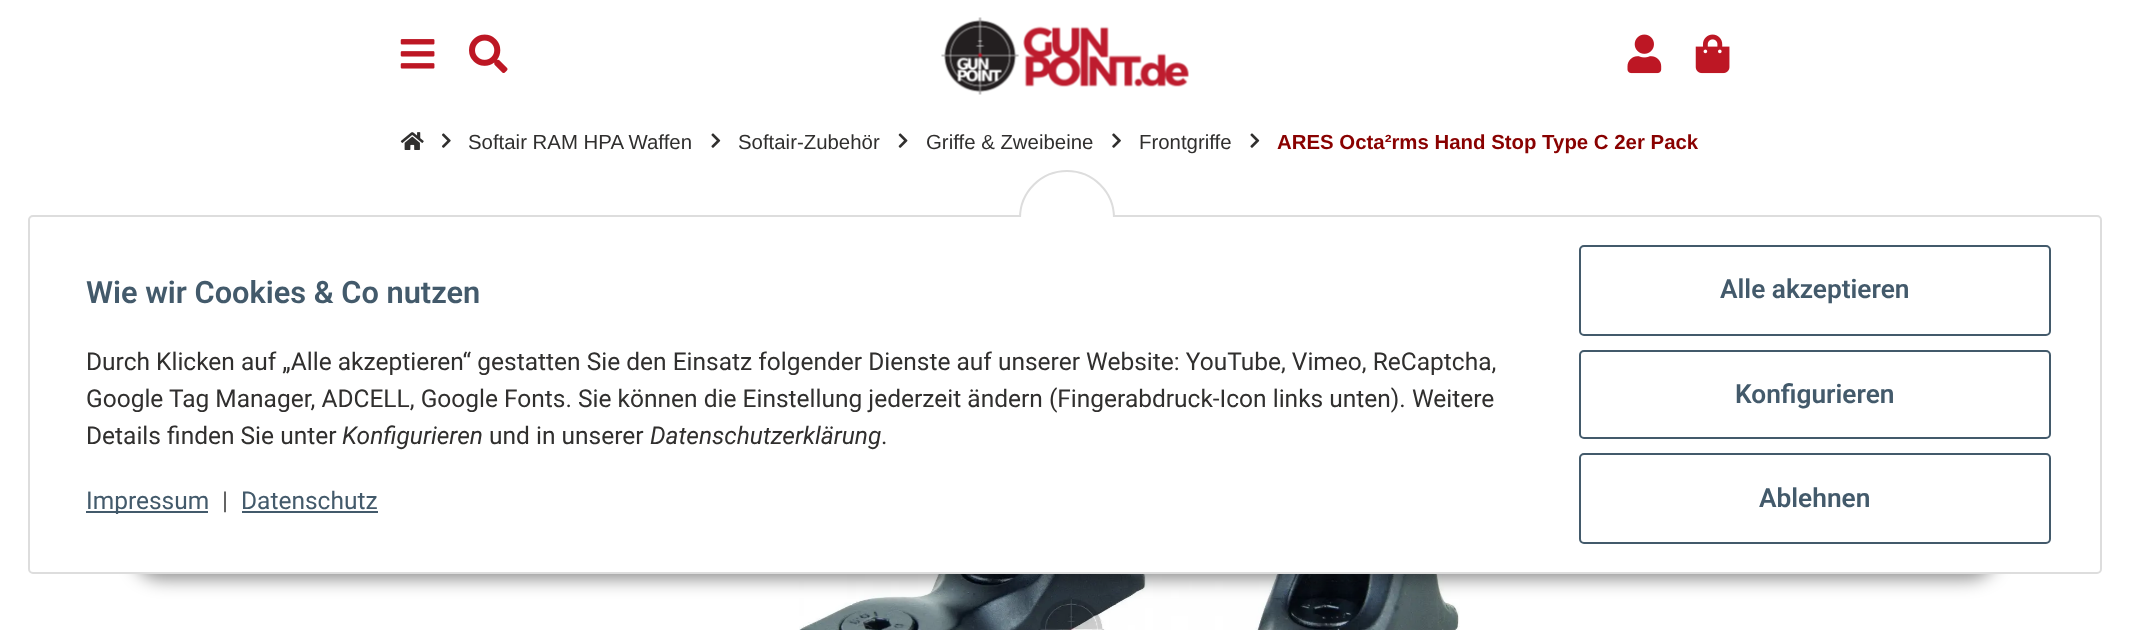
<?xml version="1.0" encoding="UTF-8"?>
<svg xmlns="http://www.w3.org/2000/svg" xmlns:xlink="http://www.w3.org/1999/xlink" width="2129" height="630">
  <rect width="100%" height="100%" fill="#ffffff" />
  <image x="400" y="39" width="35" height="30" xlink:href="image1.png" />
  <image x="469" y="34" width="39" height="39" xlink:href="image2.png" />
  <image x="941" y="17" width="248" height="78" xlink:href="image3.png" />
  <image x="1627" y="34" width="35" height="40" xlink:href="image4.png" />
  <image x="1695" y="34" width="35" height="40" xlink:href="image5.png" />
  <image x="400" y="132" width="24" height="18" xlink:href="image6.png" />
  <image x="442" y="133" width="9" height="15" xlink:href="image7.png" />
  <image x="711" y="133" width="10" height="15" xlink:href="image8.png" />
  <image x="898" y="133" width="10" height="15" xlink:href="image9.png" />
  <image x="1112" y="133" width="9" height="15" xlink:href="image10.png" />
  <image x="1250" y="133" width="10" height="15" xlink:href="image8.png" />
  <image x="799" y="574" width="661" height="56" xlink:href="image11.png" />
  <rect x="133" y="523" width="1864" height="56" rx="28" fill="#000000" fill-opacity="0.45" filter="blur(9px)" />
  <rect x="29" y="216" width="2072" height="357" rx="4" fill="#ffffff" stroke="#dddddd" stroke-width="2" />
  <circle cx="1067" cy="218" r="47" fill="#ffffff" stroke="#dddddd" stroke-width="2" />
  <rect x="1019" y="217" width="96" height="49" fill="#ffffff" />
  <rect x="86" y="511" width="122" height="2" fill="#435a6b" />
  <rect x="242" y="511" width="136" height="2" fill="#435a6b" />
  <rect x="1580" y="246" width="470" height="89" rx="4" fill="none" stroke="#435a6b" stroke-width="2" />
  <rect x="1580" y="351" width="470" height="87" rx="4" fill="none" stroke="#435a6b" stroke-width="2" />
  <rect x="1580" y="454" width="470" height="89" rx="4" fill="none" stroke="#435a6b" stroke-width="2" />
  <text x="468" y="149" style="font-family: Liberation Sans; font-size: 20.4px; fill: #302f2e">Softair RAM HPA Waffen</text>
  <text x="738" y="149" style="font-family: Liberation Sans; font-size: 20.4px; fill: #302f2e">Softair-Zubehör</text>
  <text x="926" y="149" style="font-family: Liberation Sans; font-size: 20.4px; fill: #302f2e">Griffe &amp; Zweibeine</text>
  <text x="1139" y="149" style="font-family: Liberation Sans; font-size: 20.4px; fill: #302f2e">Frontgriffe</text>
  <text x="1277" y="149" style="font-family: Liberation Sans; font-size: 20.4px; font-weight: bold; fill: #890100">ARES Octa²rms Hand Stop Type C 2er Pack</text>
  <text x="86" y="303" style="font-family: Roboto; font-size: 30.75px; font-weight: 600; fill: #435a6b">Wie wir Cookies &amp; Co nutzen</text>
  <text x="86" y="370" style="font-family: Roboto; font-size: 24.5px; fill: #302f2e">Durch Klicken auf „Alle akzeptieren“ gestatten Sie den Einsatz folgender Dienste auf unserer Website: YouTube, Vimeo, ReCaptcha,</text>
  <text x="86" y="407" style="font-family: Roboto; font-size: 24.5px; fill: #302f2e">Google Tag Manager, ADCELL, Google Fonts. Sie können die Einstellung jederzeit ändern (Fingerabdruck-Icon links unten). Weitere</text>
  <text x="86" y="444" style="font-family: Roboto; font-size: 24.5px; fill: #302f2e">Details finden Sie unter</text>
  <text x="342" y="444" style="font-family: Roboto; font-size: 24.5px; font-style: italic; fill: #302f2e">Konfigurieren</text>
  <text x="489" y="444" style="font-family: Roboto; font-size: 24.5px; fill: #302f2e">und in unserer</text>
  <text x="650" y="444" style="font-family: Roboto; font-size: 24.5px; font-style: italic; fill: #302f2e">Datenschutzerklärung</text>
  <text x="881" y="444" style="font-family: Roboto; font-size: 24.5px; fill: #302f2e">.</text>
  <text x="86" y="509" style="font-family: Roboto; font-size: 24.5px; fill: #435a6b">Impressum</text>
  <text x="222" y="509" style="font-family: Roboto; font-size: 24.5px; fill: #525252">|</text>
  <text x="241" y="509" style="font-family: Roboto; font-size: 24.5px; fill: #435a6b">Datenschutz</text>
  <text x="1720" y="298" style="font-family: Roboto; font-size: 26.25px; font-weight: 600; fill: #435a6b">Alle akzeptieren</text>
  <text x="1735" y="403" style="font-family: Roboto; font-size: 26.25px; font-weight: 600; fill: #435a6b">Konfigurieren</text>
  <text x="1759" y="507" style="font-family: Roboto; font-size: 26.25px; font-weight: 600; fill: #435a6b">Ablehnen</text>
</svg>
